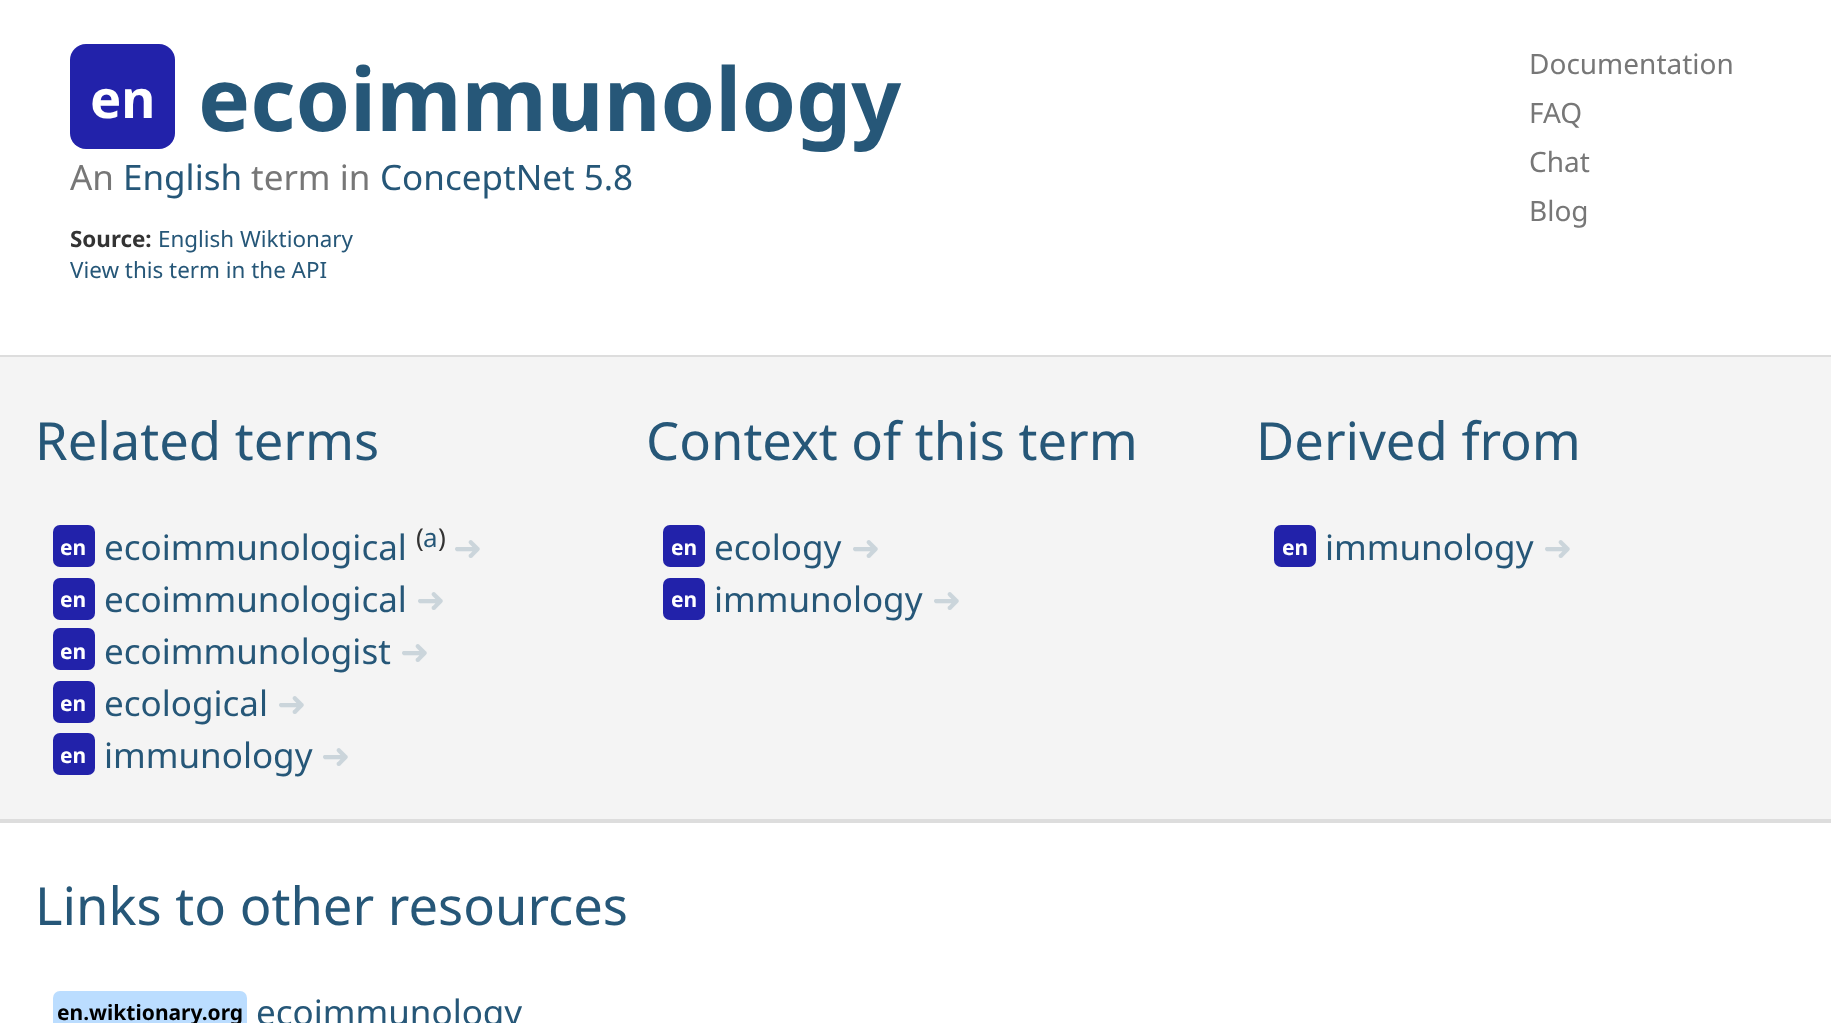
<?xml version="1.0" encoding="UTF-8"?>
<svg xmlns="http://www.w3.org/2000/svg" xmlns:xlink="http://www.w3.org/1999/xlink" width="1831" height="1023">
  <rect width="100%" height="100%" fill="#ffffff" />
  <rect x="70" y="44" width="105" height="105" rx="16" fill="#2222aa" />
  <rect y="357" width="1831" height="462" fill="#f4f4f4" />
  <rect y="355" width="1831" height="2" fill="#dddddd" />
  <rect y="819" width="1831" height="4" fill="#dddddd" />
  <rect x="53" y="525" width="42" height="42" rx="7" fill="#2222aa" />
  <rect x="53" y="578" width="42" height="42" rx="7" fill="#2222aa" />
  <rect x="53" y="628" width="42" height="42" rx="7" fill="#2222aa" />
  <rect x="53" y="681" width="42" height="42" rx="7" fill="#2222aa" />
  <rect x="53" y="733" width="42" height="42" rx="7" fill="#2222aa" />
  <rect x="663" y="525" width="42" height="42" rx="7" fill="#2222aa" />
  <rect x="663" y="578" width="42" height="42" rx="7" fill="#2222aa" />
  <rect x="1274" y="525" width="42" height="42" rx="7" fill="#2222aa" />
  <rect x="53" y="991" width="194" height="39" rx="7" fill="#bbddff" />
  <text x="90" y="118" style="font-family: Noto Sans; font-size: 52.5px; font-weight: bold; fill: #ffffff">en</text>
  <text x="198" y="131" style="font-family: Noto Sans; font-size: 87.5px; font-weight: bold; fill: #265778">ecoimmunology</text>
  <text x="70" y="190" style="font-family: Noto Sans; font-size: 35px; fill: #777777">An</text>
  <text x="123" y="190" style="font-family: Noto Sans; font-size: 35px; fill: #265778">English</text>
  <text x="251" y="190" style="font-family: Noto Sans; font-size: 35px; fill: #777777">term in</text>
  <text x="380" y="190" style="font-family: Noto Sans; font-size: 35px; fill: #265778">ConceptNet 5.8</text>
  <text x="70" y="247" style="font-family: Noto Sans; font-size: 22.4px; font-weight: bold; fill: #333333">Source:</text>
  <text x="158" y="247" style="font-family: Noto Sans; font-size: 22.4px; fill: #265778">English Wiktionary</text>
  <text x="70" y="278" style="font-family: Noto Sans; font-size: 22.4px; fill: #265778">View this term in the API</text>
  <text x="1529" y="74" style="font-family: Noto Sans; font-size: 28px; fill: #777777">Documentation</text>
  <text x="1529" y="123" style="font-family: Noto Sans; font-size: 28px; fill: #777777">FAQ</text>
  <text x="1529" y="172" style="font-family: Noto Sans; font-size: 28px; fill: #777777">Chat</text>
  <text x="1529" y="221" style="font-family: Noto Sans; font-size: 28px; fill: #777777">Blog</text>
  <text x="35" y="460" style="font-family: Noto Sans; font-size: 52.5px; fill: #265778">Related terms</text>
  <text x="60" y="555" style="font-family: Noto Sans; font-size: 21px; font-weight: bold; fill: #ffffff">en</text>
  <text x="104" y="560" style="font-family: Noto Sans; font-size: 35px; fill: #265778">ecoimmunological</text>
  <text x="416" y="547" style="font-family: Noto Sans; font-size: 26px; fill: #333333">(</text>
  <text x="423" y="547" style="font-family: Noto Sans; font-size: 26px; fill: #265778">a</text>
  <text x="438" y="547" style="font-family: Noto Sans; font-size: 26px; fill: #333333">)</text>
  <text x="453" y="560" style="font-family: DejaVu Sans; font-size: 35px; fill: #cbd5db">➜</text>
  <text x="60" y="607" style="font-family: Noto Sans; font-size: 21px; font-weight: bold; fill: #ffffff">en</text>
  <text x="104" y="612" style="font-family: Noto Sans; font-size: 35px; fill: #265778">ecoimmunological</text>
  <text x="416" y="612" style="font-family: DejaVu Sans; font-size: 35px; fill: #cbd5db">➜</text>
  <text x="60" y="659" style="font-family: Noto Sans; font-size: 21px; font-weight: bold; fill: #ffffff">en</text>
  <text x="104" y="664" style="font-family: Noto Sans; font-size: 35px; fill: #265778">ecoimmunologist</text>
  <text x="400" y="664" style="font-family: DejaVu Sans; font-size: 35px; fill: #cbd5db">➜</text>
  <text x="60" y="711" style="font-family: Noto Sans; font-size: 21px; font-weight: bold; fill: #ffffff">en</text>
  <text x="104" y="716" style="font-family: Noto Sans; font-size: 35px; fill: #265778">ecological</text>
  <text x="277" y="716" style="font-family: DejaVu Sans; font-size: 35px; fill: #cbd5db">➜</text>
  <text x="60" y="763" style="font-family: Noto Sans; font-size: 21px; font-weight: bold; fill: #ffffff">en</text>
  <text x="104" y="768" style="font-family: Noto Sans; font-size: 35px; fill: #265778">immunology</text>
  <text x="321" y="768" style="font-family: DejaVu Sans; font-size: 35px; fill: #cbd5db">➜</text>
  <text x="646" y="460" style="font-family: Noto Sans; font-size: 52.5px; fill: #265778">Context of this term</text>
  <text x="671" y="555" style="font-family: Noto Sans; font-size: 21px; font-weight: bold; fill: #ffffff">en</text>
  <text x="714" y="560" style="font-family: Noto Sans; font-size: 35px; fill: #265778">ecology</text>
  <text x="851" y="560" style="font-family: DejaVu Sans; font-size: 35px; fill: #cbd5db">➜</text>
  <text x="671" y="607" style="font-family: Noto Sans; font-size: 21px; font-weight: bold; fill: #ffffff">en</text>
  <text x="714" y="612" style="font-family: Noto Sans; font-size: 35px; fill: #265778">immunology</text>
  <text x="932" y="612" style="font-family: DejaVu Sans; font-size: 35px; fill: #cbd5db">➜</text>
  <text x="1256" y="460" style="font-family: Noto Sans; font-size: 52.5px; fill: #265778">Derived from</text>
  <text x="1282" y="555" style="font-family: Noto Sans; font-size: 21px; font-weight: bold; fill: #ffffff">en</text>
  <text x="1325" y="560" style="font-family: Noto Sans; font-size: 35px; fill: #265778">immunology</text>
  <text x="1543" y="560" style="font-family: DejaVu Sans; font-size: 35px; fill: #cbd5db">➜</text>
  <text x="35" y="925" style="font-family: Noto Sans; font-size: 52.5px; fill: #265778">Links to other resources</text>
  <text x="57" y="1020" style="font-family: Noto Sans; font-size: 21px; font-weight: bold; fill: #000000">en.wiktionary.org</text>
  <text x="256" y="1025" style="font-family: Noto Sans; font-size: 35px; fill: #265778">ecoimmunology</text>
</svg>
